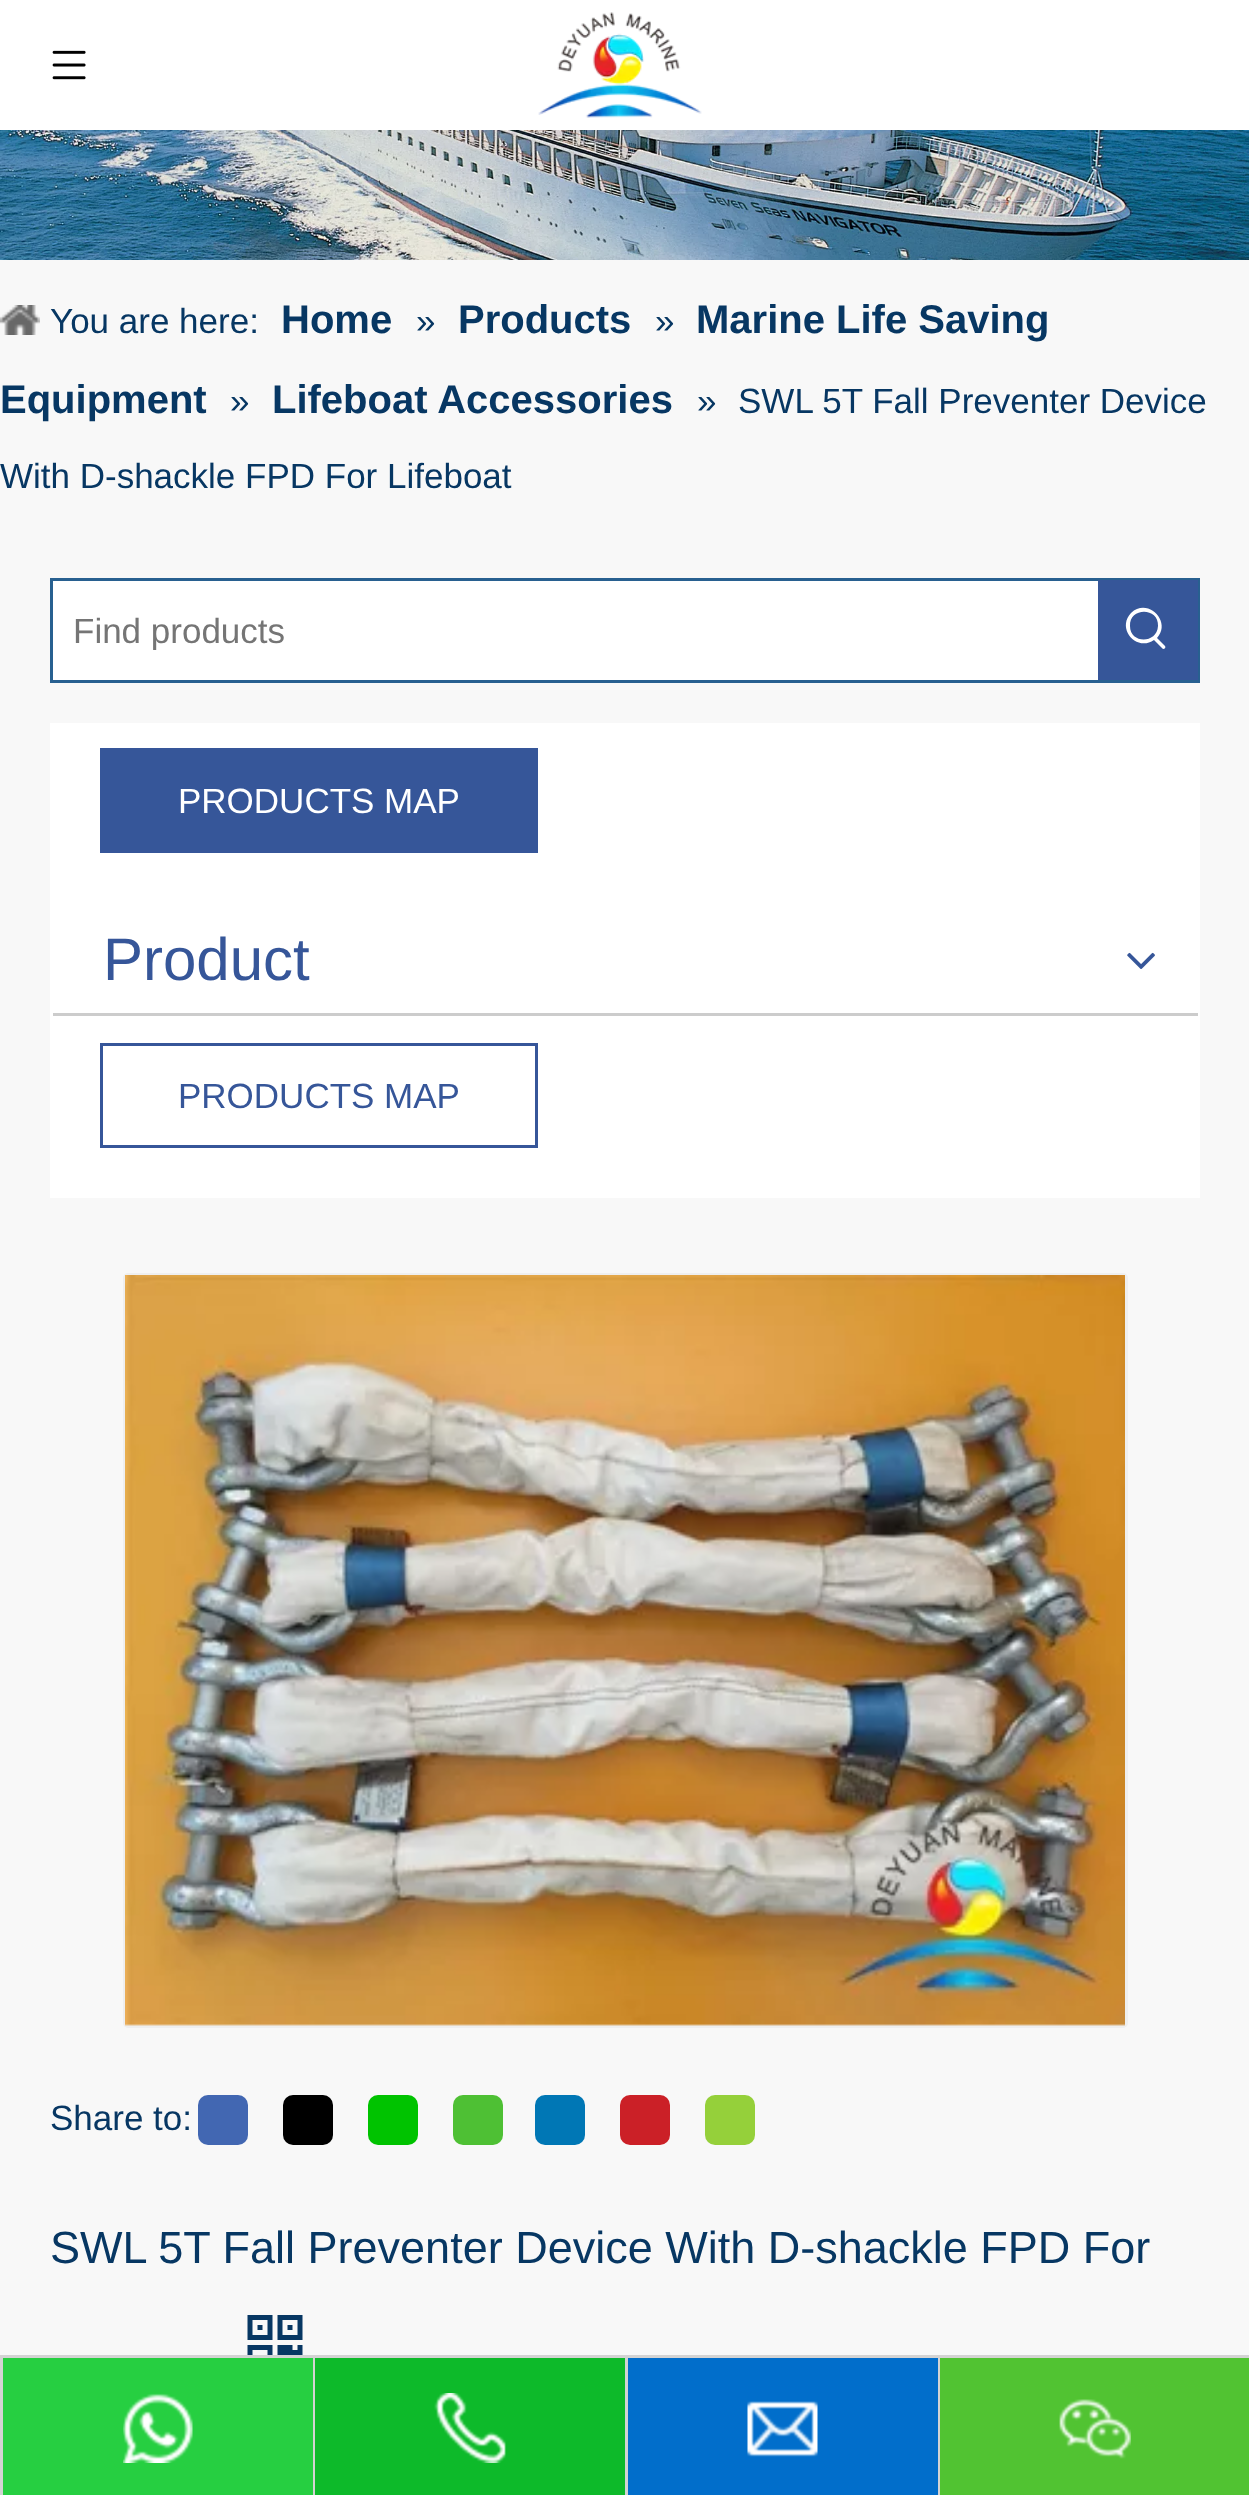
<?xml version="1.0" encoding="UTF-8"?>
<svg xmlns="http://www.w3.org/2000/svg" xmlns:xlink="http://www.w3.org/1999/xlink" width="1249" height="2495">
  <defs>
    <clipPath id="clip1"><rect x="53" y="610" width="1045" height="40" /></clipPath>
  </defs>
  <rect width="100%" height="100%" fill="#f8f8f8" />
  <rect width="1249" height="130" fill="#ffffff" />
  <image x="52" y="50" width="34" height="30" xlink:href="image1.png" />
  <image x="538" y="12" width="164" height="106" xlink:href="image2.png" />
  <image x="0" y="130" width="1249" height="130" xlink:href="image3.png" />
  <image x="0" y="305" width="40" height="30" xlink:href="image4.png" />
  <rect x="53" y="581" width="1045" height="99" fill="#ffffff" />
  <rect x="51.5" y="579.5" width="1147" height="102" fill="none" stroke="#286090" stroke-width="3" />
  <rect x="1098" y="580" width="100" height="100" fill="#365699" />
  <path d="M 1130 626 c -1 -19 29 -19 28 0 c -1 18 -28 18 -28 0 z m 35 20 l -8 -8 c 15 -16 -9 -41 -26 -25 c -15 16 6 39 23 27 l 9 9 c 2 0 3 -2 2 -3" fill="#ffffff" />
  <rect x="50" y="723" width="1150" height="180" fill="#ffffff" />
  <rect x="100" y="748" width="438" height="105" fill="#365699" />
  <rect x="50" y="903" width="1150" height="295" fill="#ffffff" />
  <rect x="53" y="1013" width="1145" height="3" fill="#cccccc" />
  <image x="1127" y="952" width="28" height="17" xlink:href="image5.png" />
  <rect x="101.5" y="1044.5" width="435" height="102" fill="none" stroke="#365699" stroke-width="3" />
  <rect x="124.5" y="1274.5" width="1002" height="752" rx="3.5" fill="none" stroke="#efefef" stroke-width="3" />
  <image x="125" y="1275" width="1000" height="751" xlink:href="image6.png" />
  <rect x="198" y="2095" width="50" height="50" rx="10" fill="#4267b2" />
  <rect x="283" y="2095" width="50" height="50" rx="10" fill="#000000" />
  <rect x="368" y="2095" width="50" height="50" rx="10" fill="#00c300" />
  <rect x="453" y="2095" width="50" height="50" rx="10" fill="#4ec034" />
  <rect x="535" y="2095" width="50" height="50" rx="10" fill="#0077b5" />
  <rect x="620" y="2095" width="50" height="50" rx="10" fill="#cb2027" />
  <rect x="705" y="2095" width="50" height="50" rx="10" fill="#95d03a" />
  <image x="247" y="2315" width="56" height="40" xlink:href="image7.png" />
  <rect y="2355" width="1249" height="3" fill="#d3d3d3" />
  <rect y="2358" width="3" height="137" fill="#d3d3d3" />
  <rect x="3" y="2358" width="310" height="137" fill="#26cf41" />
  <image x="123" y="2393" width="70" height="70" xlink:href="image8.png" />
  <rect x="313" y="2358" width="2" height="137" fill="#d3d3d3" />
  <rect x="315" y="2358" width="310" height="137" fill="#0dba2a" />
  <image x="434" y="2393" width="72" height="70" xlink:href="image9.png" />
  <rect x="625" y="2358" width="3" height="137" fill="#d3d3d3" />
  <rect x="628" y="2358" width="310" height="137" fill="#016ecb" />
  <image x="747" y="2401" width="71" height="56" xlink:href="image10.png" />
  <rect x="938" y="2358" width="2" height="137" fill="#d3d3d3" />
  <rect x="940" y="2358" width="309" height="137" fill="#51c332" />
  <image x="1059" y="2399" width="72" height="60" xlink:href="image11.png" />
  <text x="50" y="333" style="font-family: Liberation Sans; font-size: 35px; fill: #073763">You are here:</text>
  <text x="281" y="333" style="font-family: Liberation Sans; font-size: 40px; font-weight: bold; fill: #073763">Home</text>
  <text x="416" y="333" style="font-family: Liberation Sans; font-size: 35px; fill: #073763">»</text>
  <text x="458" y="333" style="font-family: Liberation Sans; font-size: 40px; font-weight: bold; fill: #073763">Products</text>
  <text x="655" y="333" style="font-family: Liberation Sans; font-size: 35px; fill: #073763">»</text>
  <text x="696" y="333" style="font-family: Liberation Sans; font-size: 40px; font-weight: bold; fill: #073763">Marine Life Saving</text>
  <text x="0" y="413" style="font-family: Liberation Sans; font-size: 40px; font-weight: bold; fill: #073763">Equipment</text>
  <text x="230" y="413" style="font-family: Liberation Sans; font-size: 35px; fill: #073763">»</text>
  <text x="272" y="413" style="font-family: Liberation Sans; font-size: 40px; font-weight: bold; fill: #073763">Lifeboat Accessories</text>
  <text x="697" y="413" style="font-family: Liberation Sans; font-size: 35px; fill: #073763">»</text>
  <text x="738" y="413" style="font-family: Liberation Sans; font-size: 35px; fill: #073763">SWL 5T Fall Preventer Device</text>
  <text x="0" y="488" style="font-family: Liberation Sans; font-size: 35px; fill: #073763">With D-shackle FPD For Lifeboat</text>
  <g clip-path="url(#clip1)">
    <text x="73" y="643" style="font-family: Liberation Sans; font-size: 35px; fill: #757575">Find products</text>
  </g>
  <text x="178" y="813" style="font-family: Liberation Sans; font-size: 35px; fill: #ffffff">PRODUCTS MAP</text>
  <text x="103" y="980" style="font-family: Liberation Sans; font-size: 60px; fill: #365699">Product</text>
  <text x="178" y="1108" style="font-family: Liberation Sans; font-size: 35px; fill: #365699">PRODUCTS MAP</text>
  <text x="50" y="2130" style="font-family: Liberation Sans; font-size: 35px; fill: #073763">Share to:</text>
  <text x="50" y="2263" style="font-family: Liberation Sans; font-size: 45px; fill: #073763">SWL 5T Fall Preventer Device With D-shackle FPD For</text>
</svg>
